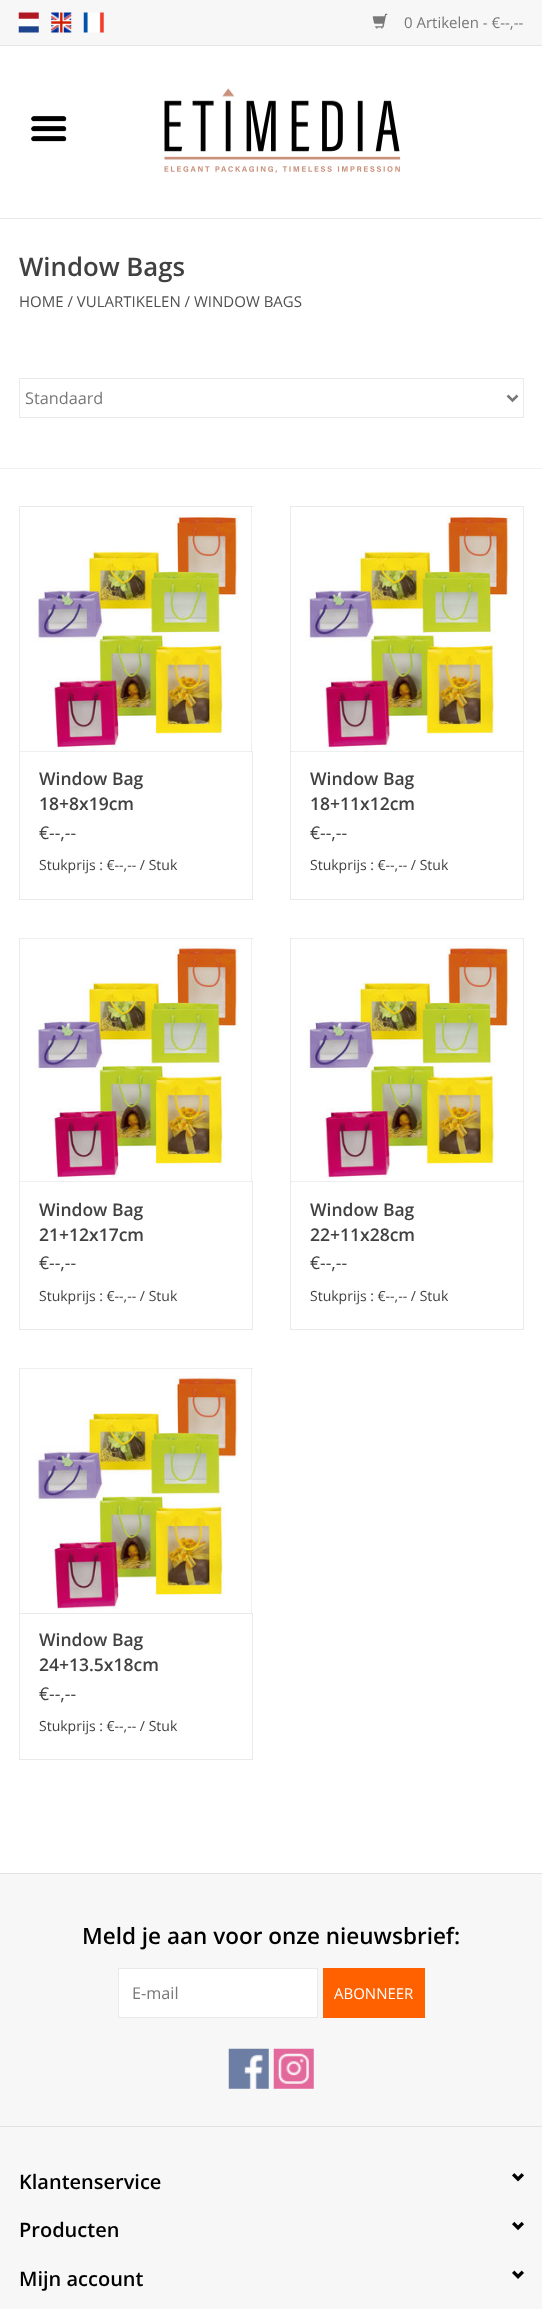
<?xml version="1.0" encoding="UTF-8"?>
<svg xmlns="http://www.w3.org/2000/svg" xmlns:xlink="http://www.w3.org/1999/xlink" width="542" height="2309">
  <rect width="100%" height="100%" fill="#ffffff" />
  <rect width="542" height="45" fill="#f7f7f7" />
  <rect y="45" width="542" height="1" fill="#e5e5e5" />
  <image x="18" y="12" width="21" height="21" xlink:href="image1.png" />
  <image x="51" y="12" width="21" height="21" xlink:href="image2.png" />
  <image x="83" y="12" width="21" height="21" xlink:href="image3.png" />
  <image x="372" y="13" width="16" height="16" xlink:href="image4.png" />
  <rect y="218" width="542" height="1" fill="#eaeaea" />
  <image x="164" y="88" width="237" height="85" xlink:href="image5.png" />
  <image x="31" y="116" width="36" height="26" xlink:href="image6.png" />
  <rect y="468" width="542" height="1" fill="#f0f0f0" />
  <rect x="19.5" y="378.5" width="504" height="39" fill="none" stroke="#eaeaea" />
  <path d="M 507.5 395.5 l 5 5 l 5 -5" fill="none" stroke="#777777" stroke-width="2.5" />
  <rect x="19" y="506" width="234" height="1" fill="#eaeaea" />
  <rect x="251" y="506" width="1" height="245" fill="#eaeaea" />
  <rect x="19" y="506" width="1" height="245" fill="#eaeaea" />
  <rect x="19.5" y="751.5" width="233" height="148" fill="none" stroke="#eaeaea" />
  <image x="20" y="508" width="232" height="244" xlink:href="image7.png" />
  <rect x="290" y="506" width="234" height="1" fill="#eaeaea" />
  <rect x="523" y="506" width="1" height="245" fill="#eaeaea" />
  <rect x="290" y="506" width="1" height="245" fill="#eaeaea" />
  <rect x="290.5" y="751.5" width="233" height="148" fill="none" stroke="#eaeaea" />
  <image x="292" y="515" width="230" height="237" xlink:href="image8.png" />
  <rect x="19" y="938" width="234" height="1" fill="#eaeaea" />
  <rect x="251" y="938" width="1" height="243" fill="#eaeaea" />
  <rect x="19" y="938" width="1" height="243" fill="#eaeaea" />
  <rect x="19.5" y="1181.5" width="233" height="148" fill="none" stroke="#eaeaea" />
  <image x="20" y="938" width="232" height="244" xlink:href="image9.png" />
  <rect x="290" y="938" width="234" height="1" fill="#eaeaea" />
  <rect x="523" y="938" width="1" height="243" fill="#eaeaea" />
  <rect x="290" y="938" width="1" height="243" fill="#eaeaea" />
  <rect x="290.5" y="1181.5" width="233" height="148" fill="none" stroke="#eaeaea" />
  <image x="292" y="938" width="230" height="244" xlink:href="image10.png" />
  <rect x="19" y="1368" width="234" height="1" fill="#eaeaea" />
  <rect x="251" y="1368" width="1" height="245" fill="#eaeaea" />
  <rect x="19" y="1368" width="1" height="245" fill="#eaeaea" />
  <image x="20" y="1368" width="232" height="244" xlink:href="image11.png" />
  <rect x="19.5" y="1613.5" width="233" height="146" fill="none" stroke="#eaeaea" />
  <rect y="1874" width="542" height="435" fill="#f7f7f7" />
  <rect y="1873" width="542" height="1" fill="#e2e2e2" />
  <rect x="118.5" y="1968.5" width="199" height="49" fill="#ffffff" stroke="#e9e9e9" />
  <rect x="323" y="1968" width="102" height="50" fill="#ff6000" />
  <image x="228" y="2048" width="41" height="41" xlink:href="image12.png" />
  <image x="273" y="2048" width="41" height="41" xlink:href="image13.png" />
  <rect y="2126" width="542" height="1" fill="#e2e2e2" />
  <image x="512" y="2173" width="12" height="9" xlink:href="image14.png" />
  <image x="512" y="2221" width="12" height="10" xlink:href="image15.png" />
  <image x="512" y="2270" width="12" height="9" xlink:href="image16.png" />
  <text x="404" y="28" style="font-family: Open Sans; font-size: 15px; fill: #777777">0 Artikelen - €--,--</text>
  <text x="19" y="276" style="font-family: Open Sans; font-size: 25.75px; font-weight: 600; fill: #414141">Window Bags</text>
  <text x="19" y="307" style="font-family: Open Sans; font-size: 15px; fill: #505050">HOME / VULARTIKELEN / WINDOW BAGS</text>
  <text x="25" y="404" style="font-family: Open Sans; font-size: 16.25px; fill: #777777">Standaard</text>
  <text x="39" y="785" style="font-family: Open Sans; font-size: 17.5px; font-weight: 600; fill: #414141">Window Bag</text>
  <text x="39" y="810" style="font-family: Open Sans; font-size: 17.5px; font-weight: 600; fill: #414141">18+8x19cm</text>
  <text x="39" y="839" style="font-family: Open Sans; font-size: 17.5px; fill: #414141">€--,--</text>
  <text x="39" y="870" style="font-family: Open Sans; font-size: 14px; fill: #414141">Stukprijs : €--,-- / Stuk</text>
  <text x="310" y="785" style="font-family: Open Sans; font-size: 17.5px; font-weight: 600; fill: #414141">Window Bag</text>
  <text x="310" y="810" style="font-family: Open Sans; font-size: 17.5px; font-weight: 600; fill: #414141">18+11x12cm</text>
  <text x="310" y="839" style="font-family: Open Sans; font-size: 17.5px; fill: #414141">€--,--</text>
  <text x="310" y="870" style="font-family: Open Sans; font-size: 14px; fill: #414141">Stukprijs : €--,-- / Stuk</text>
  <text x="39" y="1216" style="font-family: Open Sans; font-size: 17.5px; font-weight: 600; fill: #414141">Window Bag</text>
  <text x="39" y="1241" style="font-family: Open Sans; font-size: 17.5px; font-weight: 600; fill: #414141">21+12x17cm</text>
  <text x="39" y="1269" style="font-family: Open Sans; font-size: 17.5px; fill: #414141">€--,--</text>
  <text x="39" y="1301" style="font-family: Open Sans; font-size: 14px; fill: #414141">Stukprijs : €--,-- / Stuk</text>
  <text x="310" y="1216" style="font-family: Open Sans; font-size: 17.5px; font-weight: 600; fill: #414141">Window Bag</text>
  <text x="310" y="1241" style="font-family: Open Sans; font-size: 17.5px; font-weight: 600; fill: #414141">22+11x28cm</text>
  <text x="310" y="1269" style="font-family: Open Sans; font-size: 17.5px; fill: #414141">€--,--</text>
  <text x="310" y="1301" style="font-family: Open Sans; font-size: 14px; fill: #414141">Stukprijs : €--,-- / Stuk</text>
  <text x="39" y="1646" style="font-family: Open Sans; font-size: 17.5px; font-weight: 600; fill: #414141">Window Bag</text>
  <text x="39" y="1671" style="font-family: Open Sans; font-size: 17.5px; font-weight: 600; fill: #414141">24+13.5x18cm</text>
  <text x="39" y="1700" style="font-family: Open Sans; font-size: 17.5px; fill: #414141">€--,--</text>
  <text x="39" y="1731" style="font-family: Open Sans; font-size: 14px; fill: #414141">Stukprijs : €--,-- / Stuk</text>
  <text x="82" y="1944" style="font-family: Open Sans; font-size: 22.5px; font-weight: 600; fill: #000000">Meld je aan voor onze nieuwsbrief:</text>
  <text x="132" y="1999" style="font-family: Open Sans; font-size: 16.25px; fill: #777777">E-mail</text>
  <text x="334" y="1999" style="font-family: Open Sans; font-size: 15px; fill: #ffffff">ABONNEER</text>
  <text x="19" y="2189" style="font-family: Open Sans; font-size: 20px; font-weight: 600; fill: #000000">Klantenservice</text>
  <text x="19" y="2237" style="font-family: Open Sans; font-size: 20px; font-weight: 600; fill: #000000">Producten</text>
  <text x="19" y="2286" style="font-family: Open Sans; font-size: 20px; font-weight: 600; fill: #000000">Mijn account</text>
</svg>
